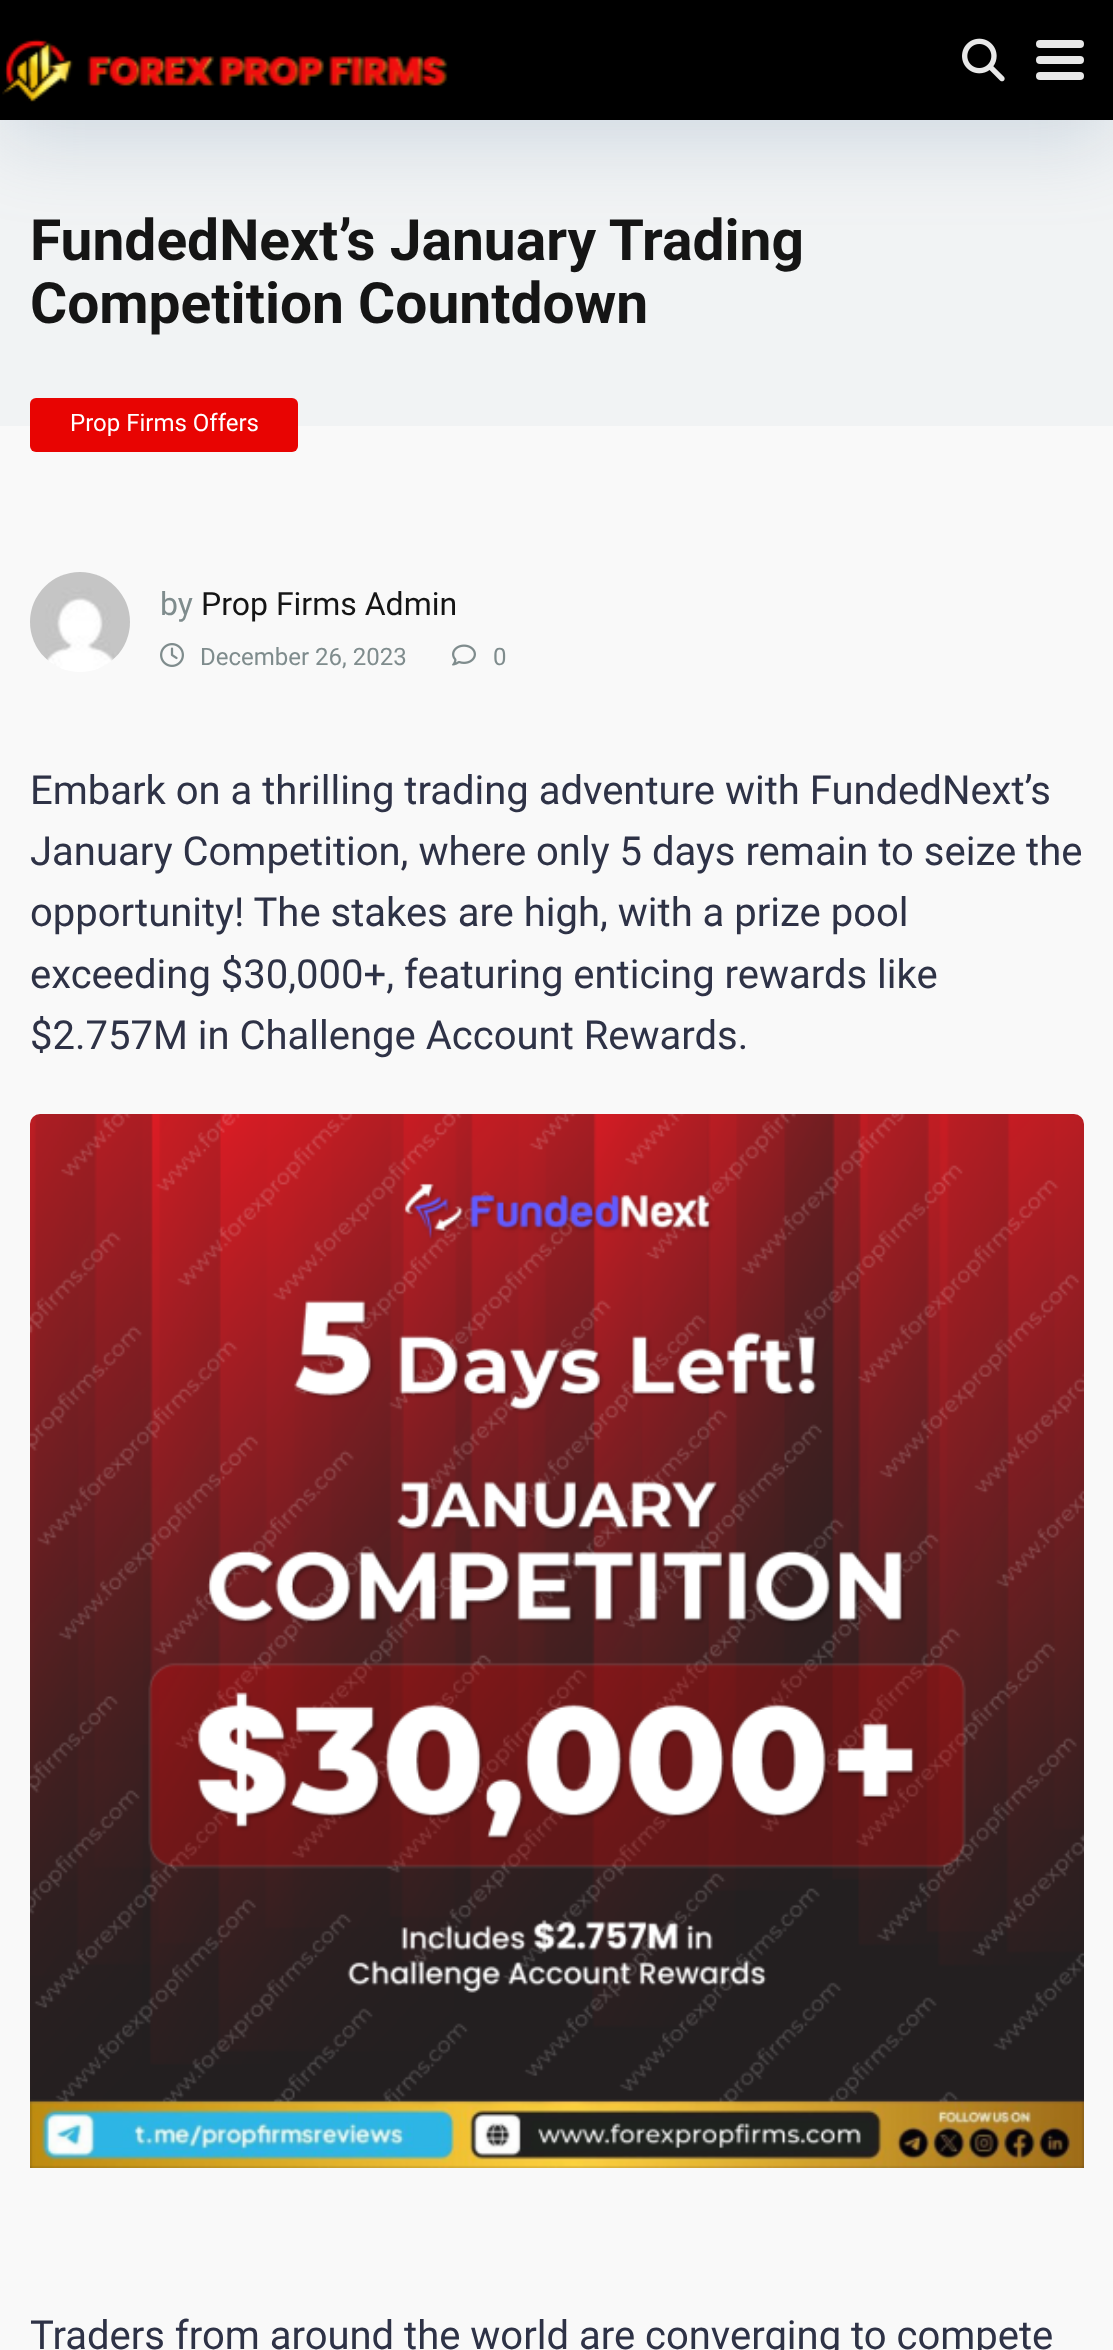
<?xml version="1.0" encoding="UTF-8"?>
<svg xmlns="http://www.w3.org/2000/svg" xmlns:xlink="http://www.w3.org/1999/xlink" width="1113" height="2350">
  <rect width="100%" height="100%" fill="#f9f9f9" />
  <rect y="120" width="1113" height="306" fill="#f1f3f4" />
  <rect y="20" width="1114" height="120" fill="#6d8dad" fill-opacity="0.25" filter="blur(40px)" />
  <rect width="1113" height="120" fill="#000000" />
  <image x="2" y="38" width="446" height="64" xlink:href="image1.png" />
  <image x="962" y="38" width="43" height="44" xlink:href="image2.png" />
  <rect x="1036" y="40" width="48" height="8" rx="4" fill="#e8e8e8" />
  <rect x="1036" y="56" width="48" height="8" rx="4" fill="#e8e8e8" />
  <rect x="1036" y="72" width="48" height="8" rx="4" fill="#e8e8e8" />
  <rect x="30" y="398" width="268" height="54" rx="6" fill="#e80402" />
  <image x="30" y="572" width="100" height="100" xlink:href="image3.png" />
  <image x="160" y="643" width="24" height="24" xlink:href="image4.png" />
  <image x="452" y="644" width="24" height="22" xlink:href="image5.png" />
  <image x="30" y="1114" width="1054" height="1054" xlink:href="image6.png" />
  <text x="30" y="260" style="font-family: Roboto; font-size: 56.9px; font-weight: bold; fill: #151515">FundedNext’s January Trading</text>
  <text x="30" y="323" style="font-family: Roboto; font-size: 56.9px; font-weight: bold; fill: #151515">Competition Countdown</text>
  <text x="70" y="431" style="font-family: Roboto; font-size: 24px; fill: #ffffff">Prop Firms Offers</text>
  <text x="160" y="615" style="font-family: Roboto; font-size: 32px; fill: #7f8c8d">by</text>
  <text x="201" y="615" style="font-family: Roboto; font-size: 32px; fill: #151515">Prop Firms Admin</text>
  <text x="200" y="665" style="font-family: Roboto; font-size: 24px; fill: #7f8c8d">December 26, 2023</text>
  <text x="493" y="665" style="font-family: Roboto; font-size: 24px; fill: #7f8c8d">0</text>
  <text x="30" y="804" style="font-family: Roboto; font-size: 40px; fill: #2e3246">Embark on a thrilling trading adventure with FundedNext’s</text>
  <text x="30" y="865" style="font-family: Roboto; font-size: 40px; fill: #2e3246">January Competition, where only 5 days remain to seize the</text>
  <text x="30" y="926" style="font-family: Roboto; font-size: 40px; fill: #2e3246">opportunity! The stakes are high, with a prize pool</text>
  <text x="30" y="988" style="font-family: Roboto; font-size: 40px; fill: #2e3246">exceeding $30,000+, featuring enticing rewards like</text>
  <text x="30" y="1049" style="font-family: Roboto; font-size: 40px; fill: #2e3246">$2.757M in Challenge Account Rewards.</text>
  <text x="30" y="2349" style="font-family: Roboto; font-size: 40px; fill: #2e3246">Traders from around the world are converging to compete</text>
</svg>
